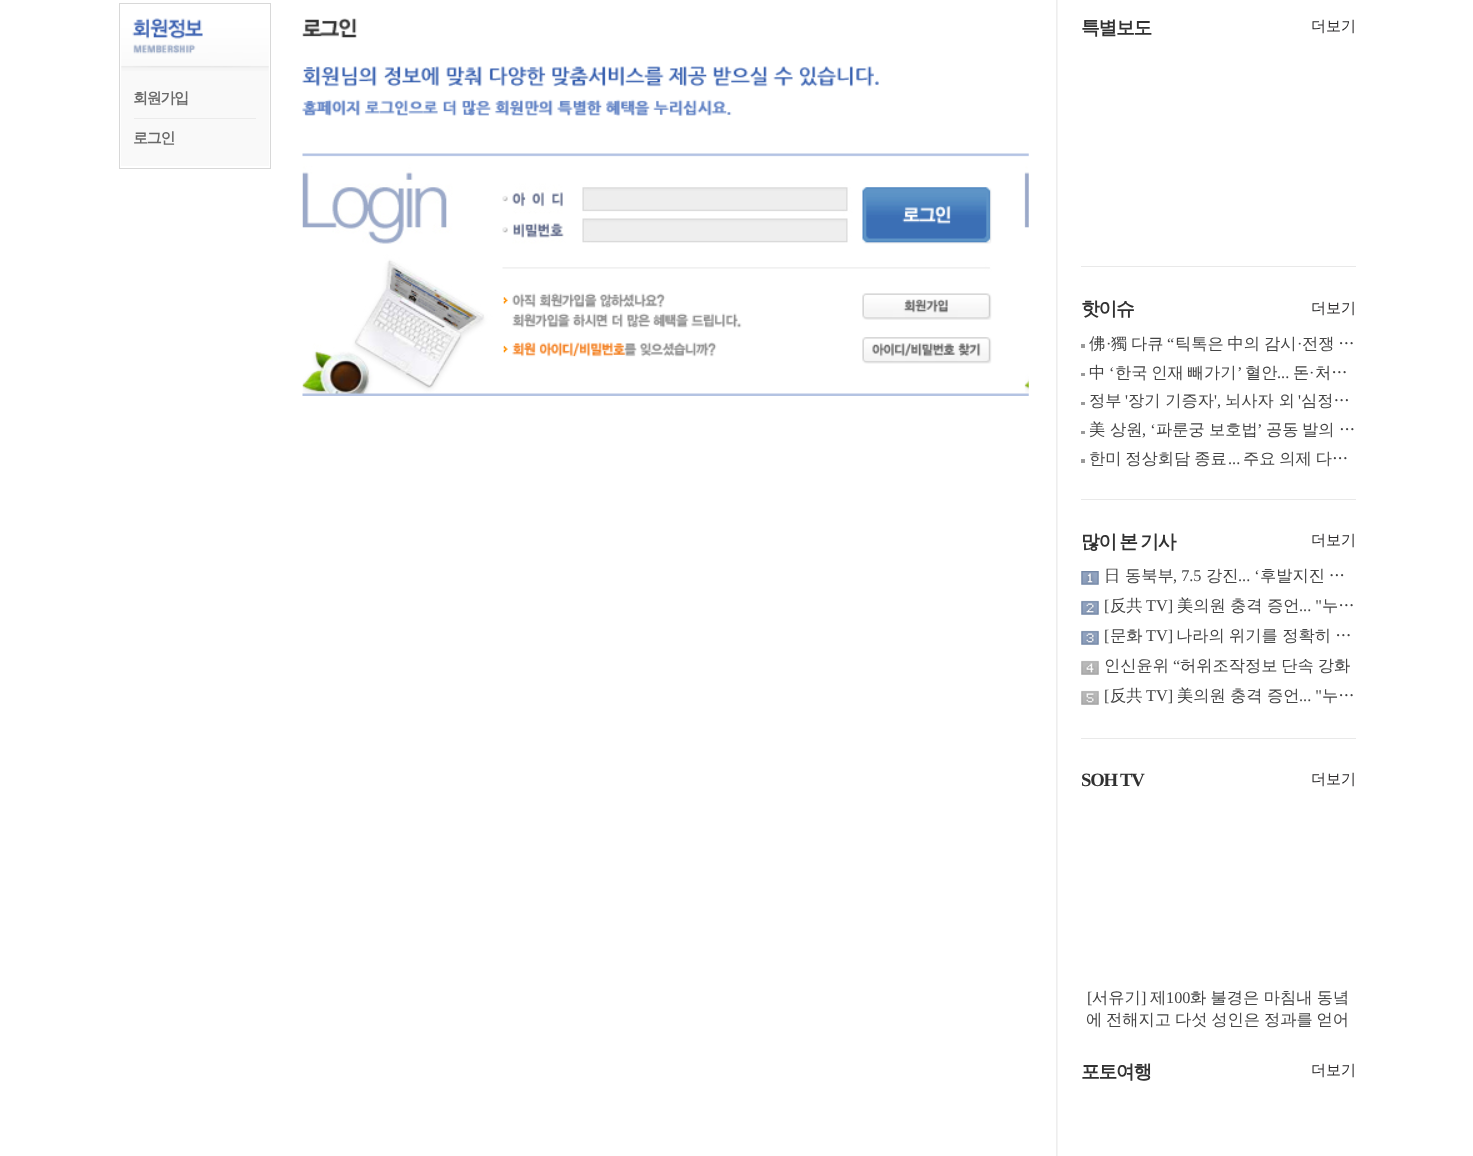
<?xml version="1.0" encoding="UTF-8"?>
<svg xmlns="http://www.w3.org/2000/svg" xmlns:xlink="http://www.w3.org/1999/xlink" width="1473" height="1156">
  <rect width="100%" height="100%" fill="#ffffff" />
  <rect x="119.5" y="3.5" width="151" height="165" fill="none" stroke="#d8d8d8" />
  <image x="121" y="18" width="148" height="53" xlink:href="image1.png" />
  <rect x="121" y="71" width="148" height="95" fill="#f9f9f9" />
  <rect x="134" y="118" width="122" height="1" fill="#ebebeb" />
  <image x="302" y="18" width="55" height="20" xlink:href="image2.png" />
  <image x="302" y="66" width="577" height="50" xlink:href="image3.png" />
  <image x="302" y="153" width="727" height="243" xlink:href="image4.png" />
  <image x="862" y="187" width="130" height="57" xlink:href="image5.png" />
  <image x="503" y="293" width="489" height="35" xlink:href="image6.png" />
  <image x="503" y="337" width="489" height="27" xlink:href="image7.png" />
  <image x="1056" y="0" width="2" height="1156" xlink:href="image8.png" />
  <rect x="1081" y="266" width="275" height="1" fill="#e9e9e9" />
  <rect x="1081" y="499" width="275" height="1" fill="#e9e9e9" />
  <rect x="1081" y="344" width="4" height="4" fill="#9a9a9a" />
  <rect x="1081" y="373" width="4" height="3" fill="#9a9a9a" />
  <rect x="1081" y="402" width="4" height="3" fill="#9a9a9a" />
  <rect x="1081" y="431" width="4" height="3" fill="#9a9a9a" />
  <rect x="1081" y="459" width="4" height="4" fill="#9a9a9a" />
  <image x="1081" y="571" width="18" height="134" xlink:href="image9.png" />
  <rect x="1081" y="738" width="275" height="1" fill="#e9e9e9" />
  <text x="133" y="103" style="font-family: WenQuanYi Zen Hei; font-size: 15px; font-weight: bold; letter-spacing: -1.25px; fill: #696969">회원가입</text>
  <text x="133" y="143" style="font-family: WenQuanYi Zen Hei; font-size: 15px; font-weight: bold; letter-spacing: -1.25px; fill: #696969">로그인</text>
  <text x="1081" y="34" style="font-family: WenQuanYi Zen Hei; font-size: 18.75px; font-weight: bold; letter-spacing: -1.25px; fill: #313131">특별보도</text>
  <text x="1311" y="31" style="font-family: WenQuanYi Zen Hei; font-size: 15px; font-weight: 500; fill: #292728">더보기</text>
  <text x="1081" y="315" style="font-family: WenQuanYi Zen Hei; font-size: 18.75px; font-weight: bold; letter-spacing: -1.25px; fill: #313131">핫이슈</text>
  <text x="1311" y="313" style="font-family: WenQuanYi Zen Hei; font-size: 15px; font-weight: 500; fill: #292728">더보기</text>
  <text x="1089" y="349" style="font-family: WenQuanYi Zen Hei; font-size: 16.25px; font-weight: 500; fill: #444444">佛</text>
  <text x="1111" y="349" word-spacing="-1" style="font-family: WenQuanYi Zen Hei; font-size: 16.25px; font-weight: 500; fill: #444444">獨 다큐</text>
  <text x="1167" y="349" style="font-family: Liberation Serif; font-size: 16.25px; fill: #444444">“</text>
  <text x="1175" y="349" word-spacing="-1" style="font-family: WenQuanYi Zen Hei; font-size: 16.25px; font-weight: 500; fill: #444444">틱톡은 中의 감시</text>
  <text x="1302" y="349" word-spacing="-1" style="font-family: WenQuanYi Zen Hei; font-size: 16.25px; font-weight: 500; fill: #444444">전쟁 …</text>
  <text x="1106" y="349" style="font-family: Liberation Serif; font-size: 16.25px; fill: #444444">·</text>
  <text x="1297" y="349" style="font-family: Liberation Serif; font-size: 16.25px; fill: #444444">·</text>
  <text x="1089" y="378" style="font-family: WenQuanYi Zen Hei; font-size: 16.25px; font-weight: 500; fill: #444444">中</text>
  <text x="1109" y="378" style="font-family: Liberation Serif; font-size: 16.25px; fill: #444444">‘</text>
  <text x="1115" y="378" word-spacing="-1" style="font-family: WenQuanYi Zen Hei; font-size: 16.25px; font-weight: 500; fill: #444444">한국 인재 빼가기</text>
  <text x="1237" y="378" style="font-family: Liberation Serif; font-size: 16.25px; fill: #444444">’</text>
  <text x="1245" y="378" style="font-family: WenQuanYi Zen Hei; font-size: 16.25px; font-weight: 500; fill: #444444">혈안</text>
  <text x="1293" y="378" style="font-family: WenQuanYi Zen Hei; font-size: 16.25px; font-weight: 500; fill: #444444">돈</text>
  <text x="1315" y="378" word-spacing="-1" style="font-family: WenQuanYi Zen Hei; font-size: 16.25px; font-weight: 500; fill: #444444">처…</text>
  <text x="1309" y="378" style="font-family: Liberation Serif; font-size: 16.25px; fill: #444444">·</text>
  <text x="1277" y="378" style="font-family: Liberation Serif; font-size: 16.25px; fill: #444444">...</text>
  <text x="1089" y="406" style="font-family: WenQuanYi Zen Hei; font-size: 16.25px; font-weight: 500; fill: #444444">정부</text>
  <text x="1125" y="406" style="font-family: Liberation Serif; font-size: 16.25px; fill: #444444">'</text>
  <text x="1128" y="406" style="font-family: WenQuanYi Zen Hei; font-size: 16.25px; font-weight: 500; fill: #444444">장기 기증자</text>
  <text x="1214" y="406" style="font-family: Liberation Serif; font-size: 16.25px; fill: #444444">',</text>
  <text x="1225" y="406" style="font-family: WenQuanYi Zen Hei; font-size: 16.25px; font-weight: 500; fill: #444444">뇌사자 외</text>
  <text x="1298" y="406" style="font-family: Liberation Serif; font-size: 16.25px; fill: #444444">'</text>
  <text x="1301" y="406" style="font-family: WenQuanYi Zen Hei; font-size: 16.25px; font-weight: 500; fill: #444444">심정…</text>
  <text x="1089" y="435" style="font-family: WenQuanYi Zen Hei; font-size: 16.25px; font-weight: 500; fill: #444444">美</text>
  <text x="1110" y="435" style="font-family: WenQuanYi Zen Hei; font-size: 16.25px; font-weight: 500; fill: #444444">상원</text>
  <text x="1142" y="435" style="font-family: Liberation Serif; font-size: 16.25px; fill: #444444">, ‘</text>
  <text x="1156" y="435" style="font-family: WenQuanYi Zen Hei; font-size: 16.25px; font-weight: 500; fill: #444444">파룬궁</text>
  <text x="1209" y="435" style="font-family: WenQuanYi Zen Hei; font-size: 16.25px; font-weight: 500; fill: #444444">보호법</text>
  <text x="1257" y="435" style="font-family: Liberation Serif; font-size: 16.25px; fill: #444444">’</text>
  <text x="1266" y="435" style="font-family: WenQuanYi Zen Hei; font-size: 16.25px; font-weight: 500; fill: #444444">공동</text>
  <text x="1302" y="435" style="font-family: WenQuanYi Zen Hei; font-size: 16.25px; font-weight: 500; fill: #444444">발의</text>
  <text x="1339" y="435" style="font-family: WenQuanYi Zen Hei; font-size: 16.25px; font-weight: 500; fill: #444444">…</text>
  <text x="1089" y="464" word-spacing="-1" style="font-family: WenQuanYi Zen Hei; font-size: 16.25px; font-weight: 500; fill: #444444">한미 정상회담 종료</text>
  <text x="1228" y="464" style="font-family: Liberation Serif; font-size: 16.25px; fill: #444444">...</text>
  <text x="1243" y="464" word-spacing="-1" style="font-family: WenQuanYi Zen Hei; font-size: 16.25px; font-weight: 500; fill: #444444">주요 의제 다…</text>
  <text x="1081" y="548" word-spacing="-1" style="font-family: WenQuanYi Zen Hei; font-size: 18.75px; font-weight: bold; letter-spacing: -1.25px; fill: #313131">많이 본 기사</text>
  <text x="1311" y="545" style="font-family: WenQuanYi Zen Hei; font-size: 15px; font-weight: 500; fill: #292728">더보기</text>
  <text x="1104" y="581" style="font-family: WenQuanYi Zen Hei; font-size: 16.25px; font-weight: 500; fill: #444444">日</text>
  <text x="1125" y="581" style="font-family: WenQuanYi Zen Hei; font-size: 16.25px; font-weight: 500; fill: #444444">동북부</text>
  <text x="1173" y="581" style="font-family: Liberation Serif; font-size: 16.25px; fill: #444444">, 7.5</text>
  <text x="1206" y="581" style="font-family: WenQuanYi Zen Hei; font-size: 16.25px; font-weight: 500; fill: #444444">강진</text>
  <text x="1238" y="581" style="font-family: Liberation Serif; font-size: 16.25px; fill: #444444">... ‘</text>
  <text x="1260" y="581" word-spacing="-1" style="font-family: WenQuanYi Zen Hei; font-size: 16.25px; font-weight: 500; fill: #444444">후발지진 …</text>
  <text x="1104" y="611" style="font-family: Liberation Serif; font-size: 16.25px; fill: #444444">[</text>
  <text x="1110" y="611" style="font-family: WenQuanYi Zen Hei; font-size: 16.25px; font-weight: 500; fill: #444444">反共</text>
  <text x="1146" y="611" style="font-family: Liberation Serif; font-size: 16.25px; fill: #444444">TV]</text>
  <text x="1177" y="611" style="font-family: WenQuanYi Zen Hei; font-size: 16.25px; font-weight: 500; fill: #444444">美의원</text>
  <text x="1230" y="611" style="font-family: WenQuanYi Zen Hei; font-size: 16.25px; font-weight: 500; fill: #444444">충격</text>
  <text x="1267" y="611" style="font-family: WenQuanYi Zen Hei; font-size: 16.25px; font-weight: 500; fill: #444444">증언</text>
  <text x="1299" y="611" style="font-family: Liberation Serif; font-size: 16.25px; fill: #444444">... "</text>
  <text x="1322" y="611" style="font-family: WenQuanYi Zen Hei; font-size: 16.25px; font-weight: 500; fill: #444444">누…</text>
  <text x="1104" y="641" style="font-family: Liberation Serif; font-size: 16.25px; fill: #444444">[</text>
  <text x="1110" y="641" style="font-family: WenQuanYi Zen Hei; font-size: 16.25px; font-weight: 500; fill: #444444">문화</text>
  <text x="1146" y="641" style="font-family: Liberation Serif; font-size: 16.25px; fill: #444444">TV]</text>
  <text x="1176" y="641" word-spacing="-0.5" style="font-family: WenQuanYi Zen Hei; font-size: 16.25px; font-weight: 500; fill: #444444">나라의 위기를 정확히 …</text>
  <text x="1104" y="671" style="font-family: WenQuanYi Zen Hei; font-size: 16.25px; font-weight: 500; fill: #444444">인신윤위</text>
  <text x="1173" y="671" style="font-family: Liberation Serif; font-size: 16.25px; fill: #444444">“</text>
  <text x="1180" y="671" word-spacing="-1" style="font-family: WenQuanYi Zen Hei; font-size: 16.25px; font-weight: 500; fill: #444444">허위조작정보 단속 강화</text>
  <text x="1104" y="701" style="font-family: Liberation Serif; font-size: 16.25px; fill: #444444">[</text>
  <text x="1110" y="701" style="font-family: WenQuanYi Zen Hei; font-size: 16.25px; font-weight: 500; fill: #444444">反共</text>
  <text x="1146" y="701" style="font-family: Liberation Serif; font-size: 16.25px; fill: #444444">TV]</text>
  <text x="1177" y="701" style="font-family: WenQuanYi Zen Hei; font-size: 16.25px; font-weight: 500; fill: #444444">美의원</text>
  <text x="1230" y="701" style="font-family: WenQuanYi Zen Hei; font-size: 16.25px; font-weight: 500; fill: #444444">충격</text>
  <text x="1267" y="701" style="font-family: WenQuanYi Zen Hei; font-size: 16.25px; font-weight: 500; fill: #444444">증언</text>
  <text x="1299" y="701" style="font-family: Liberation Serif; font-size: 16.25px; fill: #444444">... "</text>
  <text x="1322" y="701" style="font-family: WenQuanYi Zen Hei; font-size: 16.25px; font-weight: 500; fill: #444444">누…</text>
  <text x="1081" y="786" style="font-family: Liberation Serif; font-size: 18.75px; font-weight: bold; letter-spacing: -1.25px; fill: #313131">SOH TV</text>
  <text x="1311" y="784" style="font-family: WenQuanYi Zen Hei; font-size: 15px; font-weight: 500; fill: #292728">더보기</text>
  <text x="1087" y="1003" style="font-family: Liberation Serif; font-size: 16.25px; fill: #444444">[</text>
  <text x="1092" y="1003" style="font-family: WenQuanYi Zen Hei; font-size: 16.25px; font-weight: 500; fill: #444444">서유기</text>
  <text x="1141" y="1003" style="font-family: Liberation Serif; font-size: 16.25px; fill: #444444">]</text>
  <text x="1150" y="1003" style="font-family: WenQuanYi Zen Hei; font-size: 16.25px; font-weight: 500; fill: #444444">제</text>
  <text x="1166" y="1003" style="font-family: Liberation Serif; font-size: 16.25px; fill: #444444">100</text>
  <text x="1190" y="1003" word-spacing="-0.5" style="font-family: WenQuanYi Zen Hei; font-size: 16.25px; font-weight: 500; fill: #444444">화 불경은 마침내 동녘</text>
  <text x="1086" y="1025" word-spacing="-1" style="font-family: WenQuanYi Zen Hei; font-size: 16.25px; font-weight: 500; fill: #444444">에 전해지고 다섯 성인은 정과를 얻어</text>
  <text x="1081" y="1078" style="font-family: WenQuanYi Zen Hei; font-size: 18.75px; font-weight: bold; letter-spacing: -1.25px; fill: #313131">포토여행</text>
  <text x="1311" y="1075" style="font-family: WenQuanYi Zen Hei; font-size: 15px; font-weight: 500; fill: #292728">더보기</text>
</svg>
